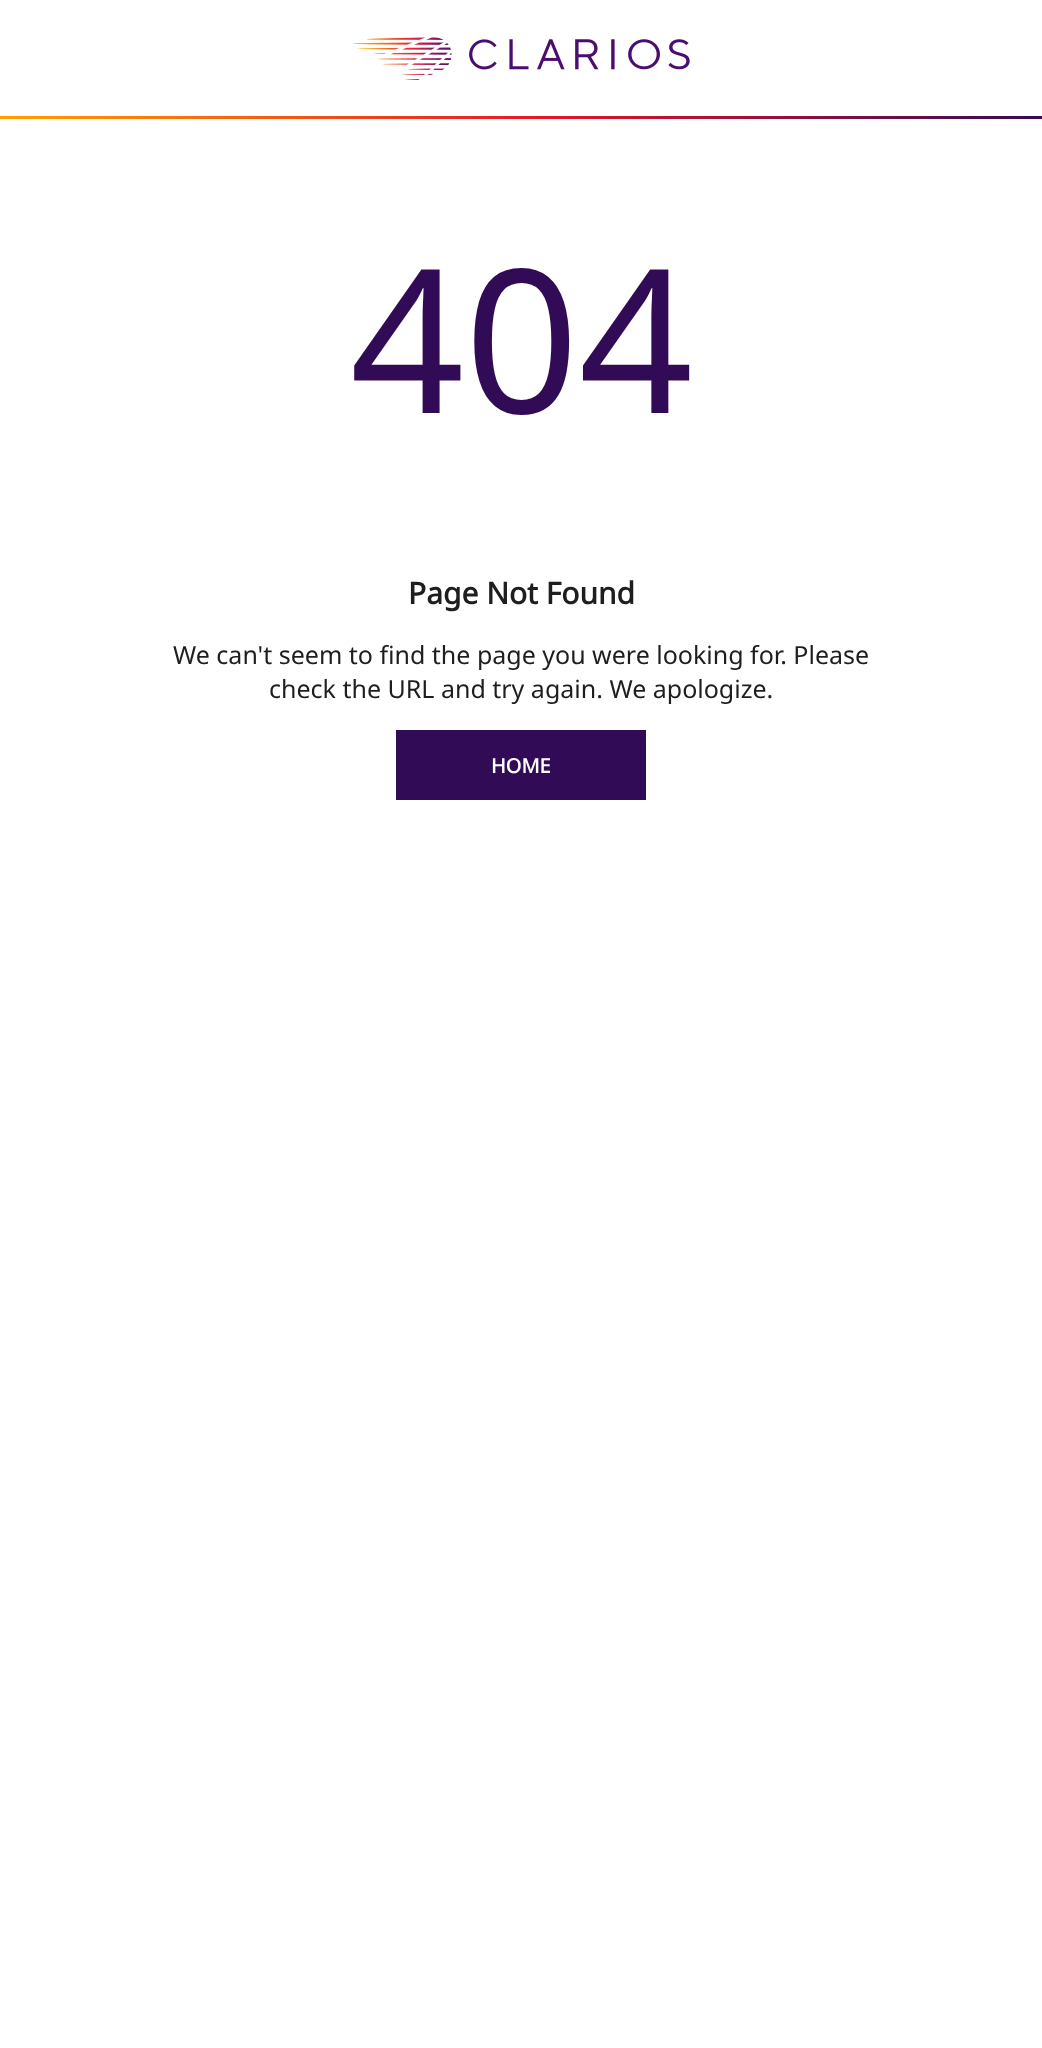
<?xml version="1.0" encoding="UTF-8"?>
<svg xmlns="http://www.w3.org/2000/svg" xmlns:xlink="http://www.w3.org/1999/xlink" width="1042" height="2048">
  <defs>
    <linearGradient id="g1" gradientUnits="userSpaceOnUse" x1="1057" y1="117" x2="0" y2="118"><stop offset="0" stop-color="#310b55" /><stop offset="0.48" stop-color="#e31628" /><stop offset="1" stop-color="#ffa100" /></linearGradient>
  </defs>
  <rect width="100%" height="100%" fill="#ffffff" />
  <image x="352" y="37" width="338" height="43" xlink:href="image1.png" />
  <rect y="116" width="1042" height="3" fill="url(#g1)" />
  <rect x="396" y="730" width="250" height="70" fill="#310b55" />
  <text x="350" y="413" style="font-family: Noto Sans; font-size: 200px; fill: #310b55">404</text>
  <text x="408" y="604" style="font-family: Noto Sans; font-size: 30px; font-weight: bold; fill: #1e1e1e">Page Not Found</text>
  <text x="173" y="664" style="font-family: Noto Sans; font-size: 25px; fill: #1e1e1e">We can't seem to find the page you were looking for. Please</text>
  <text x="269" y="698" style="font-family: Noto Sans; font-size: 25px; fill: #1e1e1e">check the URL and try again. We apologize.</text>
  <text x="491" y="773" style="font-family: Noto Sans; font-size: 20px; font-weight: bold; fill: #ffffff">HOME</text>
</svg>
